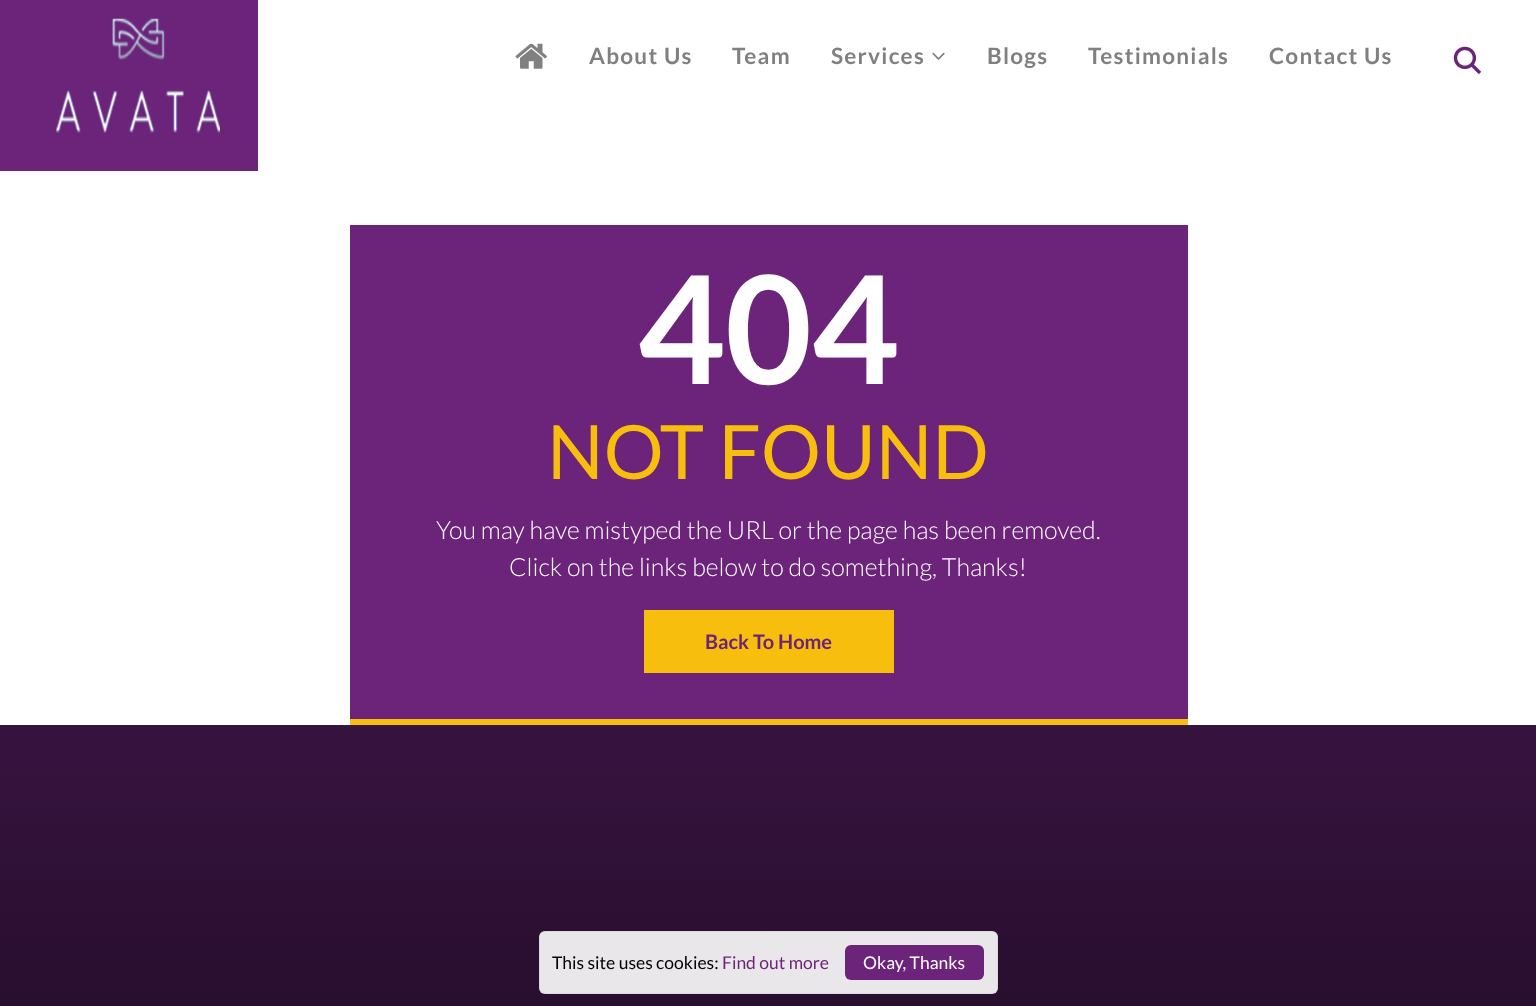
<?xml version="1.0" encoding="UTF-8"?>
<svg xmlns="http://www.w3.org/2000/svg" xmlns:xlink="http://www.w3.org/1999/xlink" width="1536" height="1006">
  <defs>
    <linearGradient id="g1" gradientUnits="userSpaceOnUse" x1="768" y1="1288" x2="768" y2="725"><stop offset="0.4" stop-color="#250d2b" /><stop offset="1" stop-color="#37133f" /></linearGradient>
  </defs>
  <rect width="100%" height="100%" fill="#ffffff" />
  <rect width="258" height="171" fill="#6c247a" />
  <image x="56" y="18" width="164" height="115" xlink:href="image1.png" />
  <image x="515" y="43" width="32" height="26" xlink:href="image2.png" />
  <image x="932" y="52" width="13" height="8" xlink:href="image3.png" />
  <image x="1453" y="46" width="29" height="29" xlink:href="image4.png" />
  <rect x="350" y="225" width="838" height="494" fill="#6c247a" />
  <rect x="350" y="719" width="838" height="6" fill="#f7be0d" />
  <rect x="644" y="610" width="250" height="63" fill="#f7be0d" />
  <rect y="725" width="1536" height="281" fill="url(#g1)" />
  <rect x="539" y="931" width="459" height="63" rx="6" fill="#ffffff" fill-opacity="0.9" />
  <rect x="539.5" y="931.5" width="458" height="62" rx="5.5" fill="none" stroke="#707070" stroke-opacity="0.1" />
  <rect x="845" y="945" width="139" height="35" rx="6" fill="#6c247a" />
  <text x="589" y="64" style="font-family: Lato; font-size: 22.5px; font-weight: bold; letter-spacing: 1.25px; fill: #808080">About Us</text>
  <text x="732" y="64" style="font-family: Lato; font-size: 22.5px; font-weight: bold; letter-spacing: 1.25px; fill: #808080">Team</text>
  <text x="831" y="64" style="font-family: Lato; font-size: 22.5px; font-weight: bold; letter-spacing: 1.25px; fill: #808080">Services</text>
  <text x="987" y="64" style="font-family: Lato; font-size: 22.5px; font-weight: bold; letter-spacing: 1.25px; fill: #808080">Blogs</text>
  <text x="1088" y="64" style="font-family: Lato; font-size: 22.5px; font-weight: bold; letter-spacing: 1.25px; fill: #808080">Testimonials</text>
  <text x="1269" y="64" style="font-family: Lato; font-size: 22.5px; font-weight: bold; letter-spacing: 1.25px; fill: #808080">Contact Us</text>
  <text x="638" y="384" style="font-family: Lato; font-size: 150px; font-weight: bold; fill: #ffffff">404</text>
  <text x="547" y="479" style="font-family: Lato; font-size: 75px; fill: #f7be0d">NOT FOUND</text>
  <text x="436" y="539" style="font-family: Lato; font-size: 25px; font-weight: 300; fill: #ffffff">You may have mistyped the URL or the page has been removed.</text>
  <text x="509" y="576" style="font-family: Lato; font-size: 25px; font-weight: 300; fill: #ffffff">Click on the links below to do something, Thanks!</text>
  <text x="705" y="649" style="font-family: Lato; font-size: 20px; font-weight: bold; fill: #6c247a">Back To Home</text>
  <text x="552" y="969" style="font-family: Lato; font-size: 17.5px; fill: #000000">This site uses cookies:</text>
  <text x="722" y="969" style="font-family: Lato; font-size: 17.5px; fill: #6c247a">Find out more</text>
  <text x="863" y="969" style="font-family: Lato; font-size: 17.5px; fill: #ffffff">Okay, Thanks</text>
</svg>
